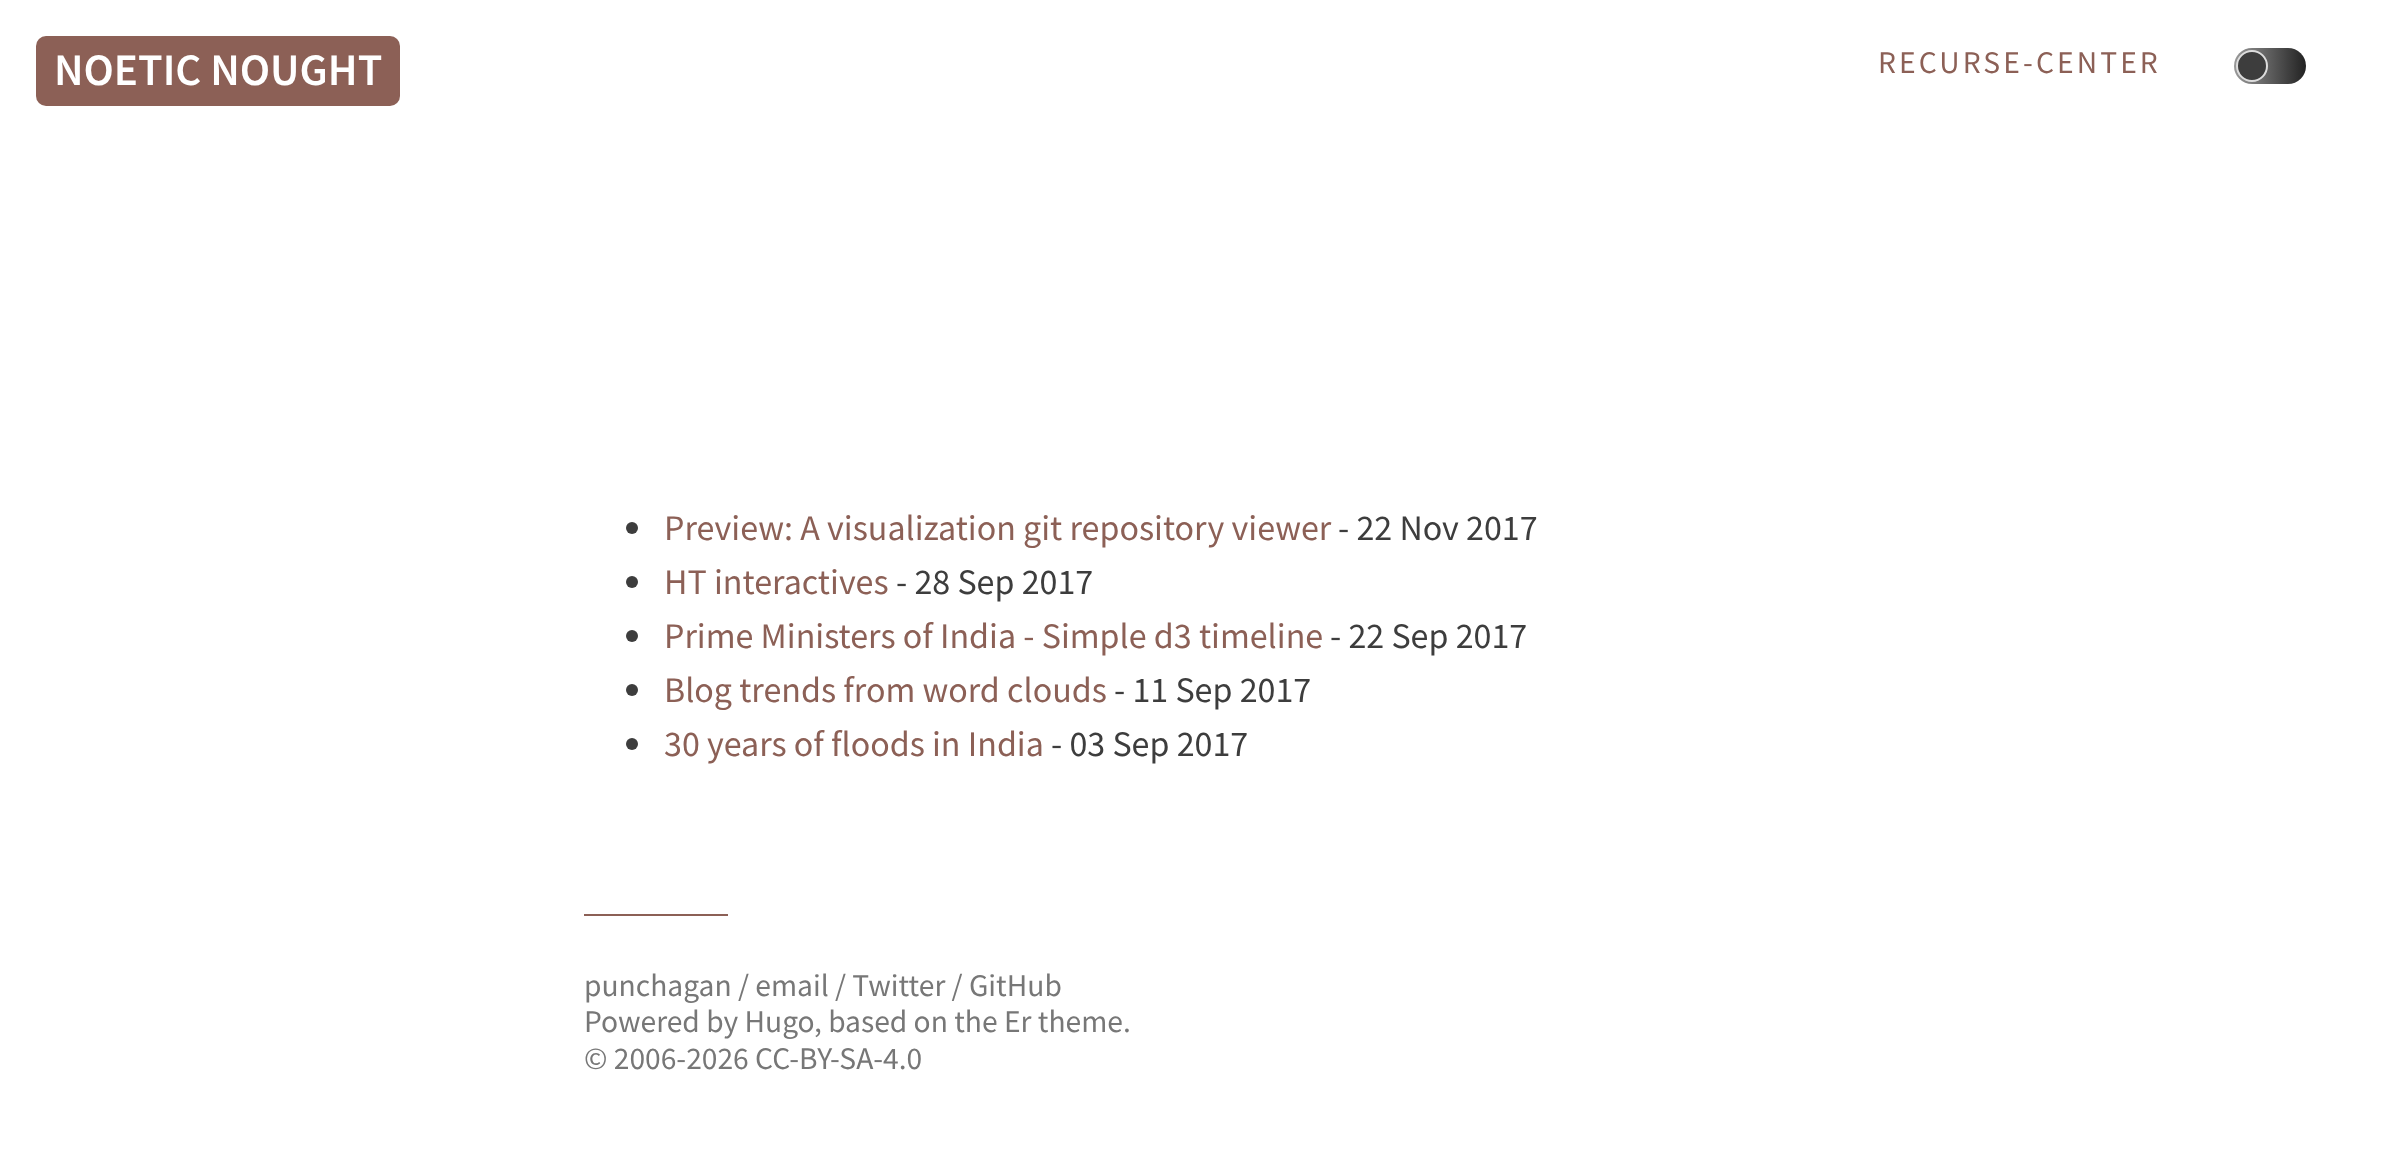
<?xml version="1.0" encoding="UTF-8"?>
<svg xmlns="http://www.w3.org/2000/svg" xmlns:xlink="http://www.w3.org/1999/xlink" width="2396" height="1162">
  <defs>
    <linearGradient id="g1" gradientUnits="userSpaceOnUse" x1="2234" y1="66" x2="2306" y2="66"><stop offset="0" stop-color="#999999" /><stop offset="1" stop-color="#222222" /></linearGradient>
  </defs>
  <rect width="100%" height="100%" fill="#ffffff" />
  <rect x="36" y="36" width="364" height="70" rx="10" fill="#8c6056" />
  <rect x="2234" y="48" width="72" height="36" rx="18" fill="url(#g1)" />
  <circle cx="2252" cy="66" r="15" fill="#3d3d3d" stroke="#dddddd" stroke-width="2" />
  <circle cx="632" cy="528" r="6" fill="#3d3d3d" />
  <circle cx="632" cy="582" r="6" fill="#3d3d3d" />
  <circle cx="632" cy="636" r="6" fill="#3d3d3d" />
  <circle cx="632" cy="690" r="6" fill="#3d3d3d" />
  <circle cx="632" cy="744" r="6" fill="#3d3d3d" />
  <rect x="584" y="914" width="144" height="2" fill="#8c6056" />
  <text x="54" y="85" style="font-family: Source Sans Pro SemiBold; font-size: 45px; font-weight: 600; fill: #ffffff">NOETIC NOUGHT</text>
  <text x="1878" y="73" style="font-family: Source Sans Pro; font-size: 31.5px; letter-spacing: 3.1px; fill: #8c6056">RECURSE-CENTER</text>
  <text x="664" y="540" style="font-family: Source Sans Pro; font-size: 36px; fill: #8c6056">Preview: A visualization git repository viewer</text>
  <text x="1338" y="540" style="font-family: Source Sans Pro; font-size: 36px; fill: #3d3d3d">- 22 Nov 2017</text>
  <text x="664" y="594" style="font-family: Source Sans Pro; font-size: 36px; fill: #8c6056">HT interactives</text>
  <text x="896" y="594" style="font-family: Source Sans Pro; font-size: 36px; fill: #3d3d3d">- 28 Sep 2017</text>
  <text x="664" y="648" style="font-family: Source Sans Pro; font-size: 36px; fill: #8c6056">Prime Ministers of India - Simple d3 timeline</text>
  <text x="1330" y="648" style="font-family: Source Sans Pro; font-size: 36px; fill: #3d3d3d">- 22 Sep 2017</text>
  <text x="664" y="702" style="font-family: Source Sans Pro; font-size: 36px; fill: #8c6056">Blog trends from word clouds</text>
  <text x="1114" y="702" style="font-family: Source Sans Pro; font-size: 36px; fill: #3d3d3d">- 11 Sep 2017</text>
  <text x="664" y="756" style="font-family: Source Sans Pro; font-size: 36px; fill: #8c6056">30 years of floods in India</text>
  <text x="1051" y="756" style="font-family: Source Sans Pro; font-size: 36px; fill: #3d3d3d">- 03 Sep 2017</text>
  <text x="584" y="996" style="font-family: Source Sans Pro; font-size: 31.5px; fill: #777777">punchagan / email / Twitter / GitHub</text>
  <text x="584" y="1032" style="font-family: Source Sans Pro; font-size: 31.5px; fill: #777777">Powered by Hugo</text>
  <text x="814" y="1032" style="font-family: Source Sans Pro; font-size: 31.5px; fill: #777777">, based on the Er theme.</text>
  <text x="584" y="1069" style="font-family: Source Sans Pro; font-size: 31.5px; fill: #777777">© 2006-2026 CC-BY-SA-4.0</text>
</svg>
